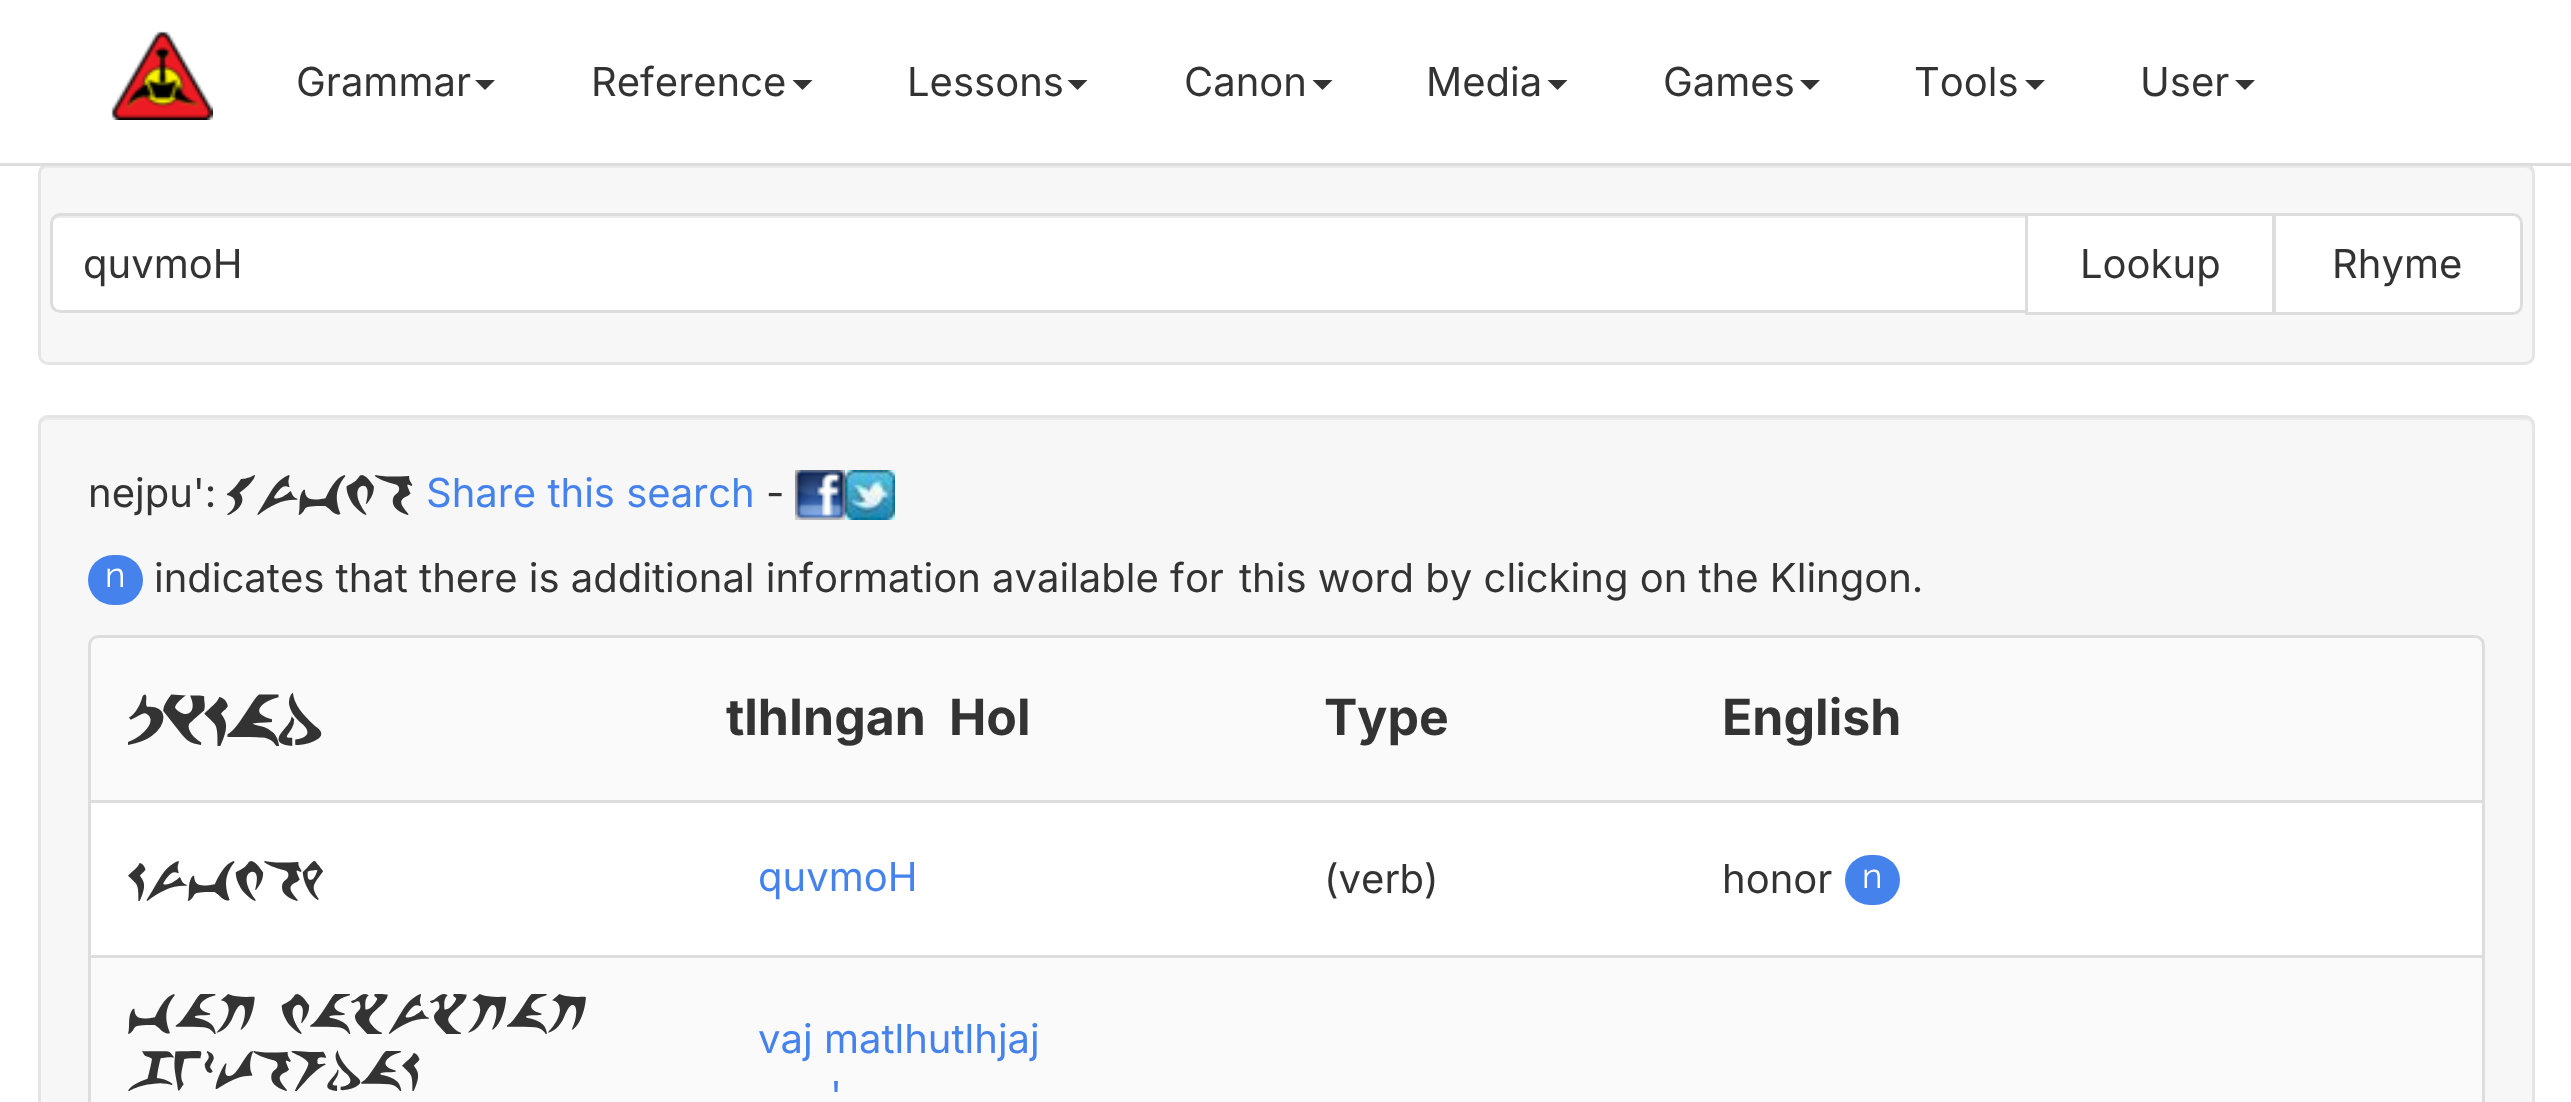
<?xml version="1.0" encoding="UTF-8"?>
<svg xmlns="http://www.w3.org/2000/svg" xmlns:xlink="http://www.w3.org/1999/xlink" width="2571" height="1102">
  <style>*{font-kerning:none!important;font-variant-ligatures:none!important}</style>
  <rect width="100%" height="100%" fill="#ffffff" />
  <rect x="38" y="163" width="2497" height="202" rx="10" fill="#f7f7f7" />
  <path d="M 48 168 h 2477 c 4 0 7 3 7 7 v 184 c 1 -1 1 -3 1 -4 v -182 c 0 -4 -4 -8 -8 -8 h -2477 c -4 0 -8 4 -8 8 v 2 c 0 -4 3 -7 8 -7 z" fill="#ebebeb" />
  <rect x="39.5" y="164.5" width="2494" height="199" rx="8.5" fill="none" stroke="#e5e5e5" stroke-width="3" />
  <rect y="163" width="2571" height="3" fill="#dddddd" />
  <image x="111" y="31" width="102" height="89" xlink:href="image1.png" />
  <path d="M 475 80 h 20 l -10 10 z" fill="#333333" />
  <path d="M 792.5 80 h 20 l -10 10 z" fill="#333333" />
  <path d="M 1067.5 80 h 20 l -10 10 z" fill="#333333" />
  <path d="M 1312.5 80 h 20 l -10 10 z" fill="#333333" />
  <path d="M 1547.5 80 h 20 l -10 10 z" fill="#333333" />
  <path d="M 1800 80 h 20 l -10 10 z" fill="#333333" />
  <path d="M 2025 80 h 20 l -10 10 z" fill="#333333" />
  <path d="M 2235 80 h 20 l -10 10 z" fill="#333333" />
  <path d="M 60 213 h 1968 v 100 h -1968 c -5.5 0 -10 -4.5 -10 -10 v -80 c 0 -5.5 4.5 -10 10 -10 z" fill="#ffffff" />
  <path d="M 60 218 h 1965 v -3 h -1964 c -4 0 -7 3 -8 6 c 2 -2 4 -3 7 -3 z" fill="#ececec" />
  <path d="M 60 214.5 h 1966.5 v 97 h -1966.5 c -4.5 0 -8.5 -4 -8.5 -8.5 v -80 c 0 -4.5 4 -8.5 8.5 -8.5 z" fill="none" stroke="#dddddd" stroke-width="3" />
  <rect x="2026.5" y="214.5" width="247" height="99" fill="#ffffff" stroke="#dddddd" stroke-width="3" />
  <path d="M 2274.5 214.5 h 238.5 c 4.5 0 8.5 4 8.5 8.5 v 82 c 0 4.5 -4 8.5 -8.5 8.5 h -238.5 z" fill="#ffffff" stroke="#dddddd" stroke-width="3" />
  <rect x="38" y="415" width="2497" height="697" rx="10" fill="#f7f7f7" />
  <path d="M 48 420 h 2477 c 4 0 7 3 7 8 v 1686 c 1 -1 1 -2 1 -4 v -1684 c 0 -4 -4 -8 -8 -8 h -2477 c -4 0 -8 4 -8 8 v 2 c 0 -5 3 -8 8 -8 z" fill="#ebebeb" />
  <rect x="39.5" y="416.5" width="2494" height="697" rx="8.5" fill="none" stroke="#e5e5e5" stroke-width="3" />
  <image x="795" y="470" width="50" height="50" xlink:href="image2.png" />
  <image x="845" y="470" width="50" height="50" xlink:href="image3.png" />
  <rect x="88" y="555" width="55" height="50" rx="25" fill="#4582ec" />
  <path d="M 98 636.5 h 2377 c 4.5 0 8.5 4 8.5 8.5 v 156.5 h -2394 v -156.5 c 0 -4.5 4 -8.5 8.5 -8.5 z" fill="#fafafa" stroke="#dddddd" stroke-width="3" />
  <rect x="89.5" y="801.5" width="2394" height="155" fill="#ffffff" stroke="#dddddd" stroke-width="3" />
  <rect x="1845" y="855" width="55" height="50" rx="25" fill="#4582ec" />
  <rect x="89.5" y="956.5" width="2394" height="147" fill="#fafafa" stroke="#dddddd" stroke-width="3" />
  <text x="296" y="96" style="font-family: Inter; font-size: 40px; fill: #333333">Grammar</text>
  <text x="591" y="96" style="font-family: Inter; font-size: 40px; fill: #333333">Reference</text>
  <text x="907" y="96" style="font-family: Inter; font-size: 40px; fill: #333333">Lessons</text>
  <text x="1184" y="96" style="font-family: Inter; font-size: 40px; fill: #333333">Canon</text>
  <text x="1426" y="96" style="font-family: Inter; font-size: 40px; fill: #333333">Media</text>
  <text x="1663" y="96" style="font-family: Inter; font-size: 40px; fill: #333333">Games</text>
  <text x="1914" y="96" style="font-family: Inter; font-size: 40px; fill: #333333">Tools</text>
  <text x="2140" y="96" style="font-family: Inter; font-size: 40px; fill: #333333">User</text>
  <text x="83" y="278" style="font-family: Inter; font-size: 40px; fill: #333333">quvmoH</text>
  <text x="2080" y="278" style="font-family: Inter; font-size: 40px; fill: #333333">Lookup</text>
  <text x="2332" y="278" style="font-family: Inter; font-size: 40px; fill: #333333">Rhyme</text>
  <text x="88" y="507" style="font-family: Inter; font-size: 40px; fill: #333333">nejpu':</text>
  <text x="227" y="507" style="font-family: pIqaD; font-size: 40px; font-weight: 500; fill: #333333">quvmoH</text>
  <text x="426" y="507" style="font-family: Inter; font-size: 40px; fill: #4582ec">Share this search</text>
  <text x="766" y="507" style="font-family: Inter; font-size: 40px; fill: #333333">-</text>
  <text x="105" y="587" style="font-family: Raleway; font-size: 35px; fill: #ffffff">n</text>
  <text x="154" y="592" style="font-family: Inter; font-size: 40px; fill: #333333">indicates that there is additional information available for</text>
  <text x="1239" y="592" style="font-family: Inter; font-size: 40px; fill: #333333">this word by clicking on the Klingon.</text>
  <text x="128" y="736" style="font-family: pIqaD; font-size: 50px; font-weight: bold; fill: #333333">pikad</text>
  <text x="726" y="735" style="font-family: Inter; font-size: 50px; font-weight: bold; fill: #333333">tlhIngan</text>
  <text x="949" y="735" style="font-family: Inter; font-size: 50px; font-weight: bold; fill: #333333">Hol</text>
  <text x="1324" y="735" style="font-family: Inter; font-size: 50px; font-weight: bold; fill: #333333">Type</text>
  <text x="1722" y="735" style="font-family: Inter; font-size: 50px; font-weight: bold; fill: #333333">English</text>
  <text x="128" y="893" style="font-family: pIqaD; font-size: 40px; font-weight: 500; fill: #333333">kuvmoh</text>
  <text x="758" y="891" style="font-family: Inter; font-size: 40px; fill: #4582ec">quvmoH</text>
  <text x="1324" y="893" style="font-family: Inter; font-size: 40px; fill: #333333">(verb)</text>
  <text x="1722" y="893" style="font-family: Inter; font-size: 40px; fill: #333333">honor</text>
  <text x="1862" y="888" style="font-family: Raleway; font-size: 35px; fill: #ffffff">n</text>
  <text x="128" y="1026" word-spacing="-2" style="font-family: pIqaD; font-size: 40px; font-weight: 500; fill: #333333">vaj maxuxjaj</text>
  <text x="128" y="1083" style="font-family: pIqaD; font-size: 40px; font-weight: 500; fill: #333333">geztordak</text>
  <text x="758" y="1053" style="font-family: Inter; font-size: 40px; fill: #4582ec">vaj matlhutlhjaj</text>
  <text x="830" y="1110" style="font-family: Inter; font-size: 40px; fill: #4582ec">'</text>
</svg>
